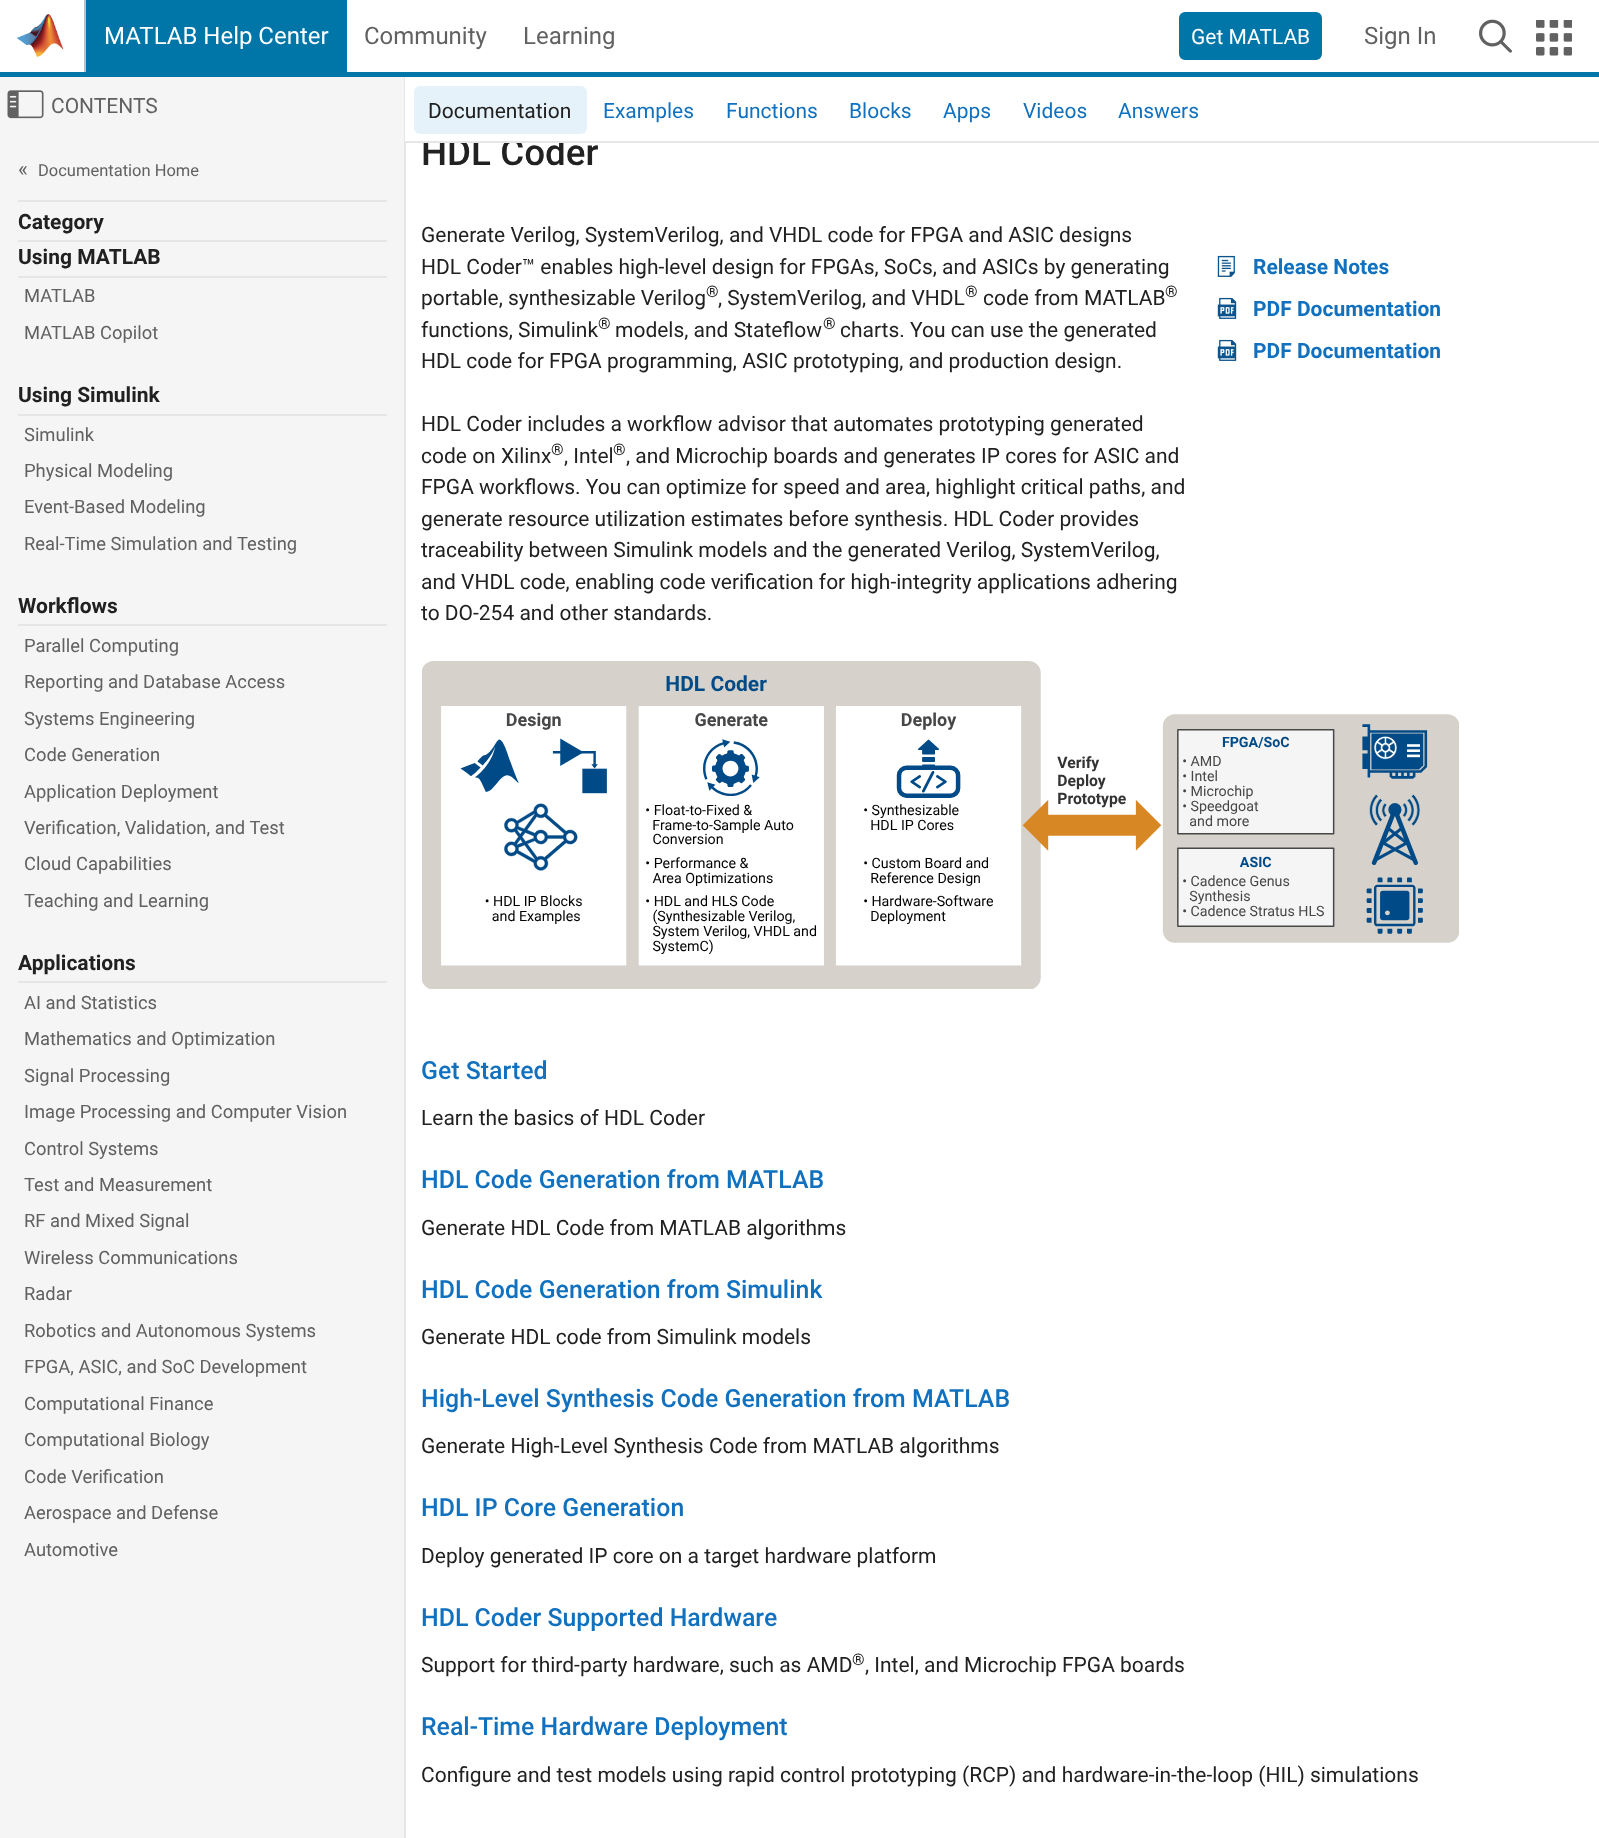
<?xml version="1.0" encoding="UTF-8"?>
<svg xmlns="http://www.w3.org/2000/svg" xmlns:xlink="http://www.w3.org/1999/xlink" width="1599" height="1838">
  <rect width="100%" height="100%" fill="#f5f5f5" />
  <rect width="1599" height="72" fill="#ffffff" />
  <rect y="72" width="1599" height="5" fill="#0076a8" />
  <rect x="84" width="2" height="72" fill="#bfbfbf" />
  <image x="17" y="14" width="47" height="43" xlink:href="image1.png" />
  <rect x="86" width="261" height="72" fill="#0076a8" />
  <rect x="1180" y="13" width="141" height="46" rx="5" fill="#0076a8" stroke="#0076a8" stroke-width="2" />
  <image x="1479" y="19" width="33" height="34" xlink:href="image2.png" />
  <image x="1536" y="20" width="36" height="36" xlink:href="image3.png" />
  <rect x="404" y="77" width="2" height="1761" fill="#e6e6e6" />
  <image x="7" y="90" width="37" height="29" xlink:href="image4.png" />
  <rect x="18" y="200" width="369" height="2" fill="#e6e6e6" />
  <rect x="18" y="240" width="369" height="2" fill="#e6e6e6" />
  <rect x="18" y="276" width="369" height="2" fill="#e6e6e6" />
  <rect x="18" y="414" width="369" height="2" fill="#e6e6e6" />
  <rect x="18" y="624" width="369" height="2" fill="#e6e6e6" />
  <rect x="18" y="981" width="369" height="2" fill="#e6e6e6" />
  <rect x="406" y="143" width="1193" height="1695" fill="#ffffff" />
  <image x="422" y="661" width="1037" height="328" xlink:href="image5.png" />
  <image x="1217" y="255" width="18" height="22" xlink:href="image6.png" />
  <image x="1217" y="297" width="20" height="22" xlink:href="image7.png" />
  <image x="1217" y="339" width="20" height="22" xlink:href="image7.png" />
  <text x="104" y="44" style="font-family: Roboto; font-size: 24px; fill: #ffffff">MATLAB Help Center</text>
  <text x="364" y="44" style="font-family: Roboto; font-size: 24px; fill: #616161">Community</text>
  <text x="523" y="44" style="font-family: Roboto; font-size: 24px; fill: #616161">Learning</text>
  <text x="1191" y="44" style="font-family: Roboto; font-size: 21px; fill: #ffffff">Get MATLAB</text>
  <text x="1364" y="44" style="font-family: Roboto; font-size: 24px; fill: #616161">Sign In</text>
  <text x="51" y="113" style="font-family: Roboto; font-size: 21px; fill: #616161">CONTENTS</text>
  <text x="18" y="176" style="font-family: Roboto; font-size: 21px; fill: #616161">«</text>
  <text x="38" y="176" style="font-family: Roboto; font-size: 16.5px; fill: #616161">Documentation Home</text>
  <text x="18" y="229" style="font-family: Roboto; font-size: 21px; font-weight: bold; fill: #212121">Category</text>
  <text x="18" y="264" style="font-family: Roboto; font-size: 21px; font-weight: bold; fill: #212121">Using MATLAB</text>
  <text x="24" y="302" style="font-family: Roboto; font-size: 18.4px; fill: #616161">MATLAB</text>
  <text x="24" y="339" style="font-family: Roboto; font-size: 18.4px; fill: #616161">MATLAB Copilot</text>
  <text x="18" y="402" style="font-family: Roboto; font-size: 21px; font-weight: bold; fill: #212121">Using Simulink</text>
  <text x="24" y="441" style="font-family: Roboto; font-size: 18.4px; fill: #616161">Simulink</text>
  <text x="24" y="477" style="font-family: Roboto; font-size: 18.4px; fill: #616161">Physical Modeling</text>
  <text x="24" y="513" style="font-family: Roboto; font-size: 18.4px; fill: #616161">Event-Based Modeling</text>
  <text x="24" y="550" style="font-family: Roboto; font-size: 18.4px; fill: #616161">Real-Time Simulation and Testing</text>
  <text x="18" y="613" style="font-family: Roboto; font-size: 21px; font-weight: bold; fill: #212121">Workflows</text>
  <text x="24" y="652" style="font-family: Roboto; font-size: 18.4px; fill: #616161">Parallel Computing</text>
  <text x="24" y="688" style="font-family: Roboto; font-size: 18.4px; fill: #616161">Reporting and Database Access</text>
  <text x="24" y="725" style="font-family: Roboto; font-size: 18.4px; fill: #616161">Systems Engineering</text>
  <text x="24" y="761" style="font-family: Roboto; font-size: 18.4px; fill: #616161">Code Generation</text>
  <text x="24" y="798" style="font-family: Roboto; font-size: 18.4px; fill: #616161">Application Deployment</text>
  <text x="24" y="834" style="font-family: Roboto; font-size: 18.4px; fill: #616161">Verification, Validation, and Test</text>
  <text x="24" y="870" style="font-family: Roboto; font-size: 18.4px; fill: #616161">Cloud Capabilities</text>
  <text x="24" y="907" style="font-family: Roboto; font-size: 18.4px; fill: #616161">Teaching and Learning</text>
  <text x="18" y="970" style="font-family: Roboto; font-size: 21px; font-weight: bold; fill: #212121">Applications</text>
  <text x="24" y="1009" style="font-family: Roboto; font-size: 18.4px; fill: #616161">AI and Statistics</text>
  <text x="24" y="1045" style="font-family: Roboto; font-size: 18.4px; fill: #616161">Mathematics and Optimization</text>
  <text x="24" y="1082" style="font-family: Roboto; font-size: 18.4px; fill: #616161">Signal Processing</text>
  <text x="24" y="1118" style="font-family: Roboto; font-size: 18.4px; fill: #616161">Image Processing and Computer Vision</text>
  <text x="24" y="1155" style="font-family: Roboto; font-size: 18.4px; fill: #616161">Control Systems</text>
  <text x="24" y="1191" style="font-family: Roboto; font-size: 18.4px; fill: #616161">Test and Measurement</text>
  <text x="24" y="1227" style="font-family: Roboto; font-size: 18.4px; fill: #616161">RF and Mixed Signal</text>
  <text x="24" y="1264" style="font-family: Roboto; font-size: 18.4px; fill: #616161">Wireless Communications</text>
  <text x="24" y="1300" style="font-family: Roboto; font-size: 18.4px; fill: #616161">Radar</text>
  <text x="24" y="1337" style="font-family: Roboto; font-size: 18.4px; fill: #616161">Robotics and Autonomous Systems</text>
  <text x="24" y="1373" style="font-family: Roboto; font-size: 18.4px; fill: #616161">FPGA, ASIC, and SoC Development</text>
  <text x="24" y="1410" style="font-family: Roboto; font-size: 18.4px; fill: #616161">Computational Finance</text>
  <text x="24" y="1446" style="font-family: Roboto; font-size: 18.4px; fill: #616161">Computational Biology</text>
  <text x="24" y="1483" style="font-family: Roboto; font-size: 18.4px; fill: #616161">Code Verification</text>
  <text x="24" y="1519" style="font-family: Roboto; font-size: 18.4px; fill: #616161">Aerospace and Defense</text>
  <text x="24" y="1556" style="font-family: Roboto; font-size: 18.4px; fill: #616161">Automotive</text>
  <text x="421" y="165" style="font-family: Roboto; font-size: 36.75px; font-weight: 500; fill: #212121">HDL Coder</text>
  <rect x="405" y="77" width="1194" height="64" fill="#ffffff" />
  <text x="1118" y="118" style="font-family: Roboto; font-size: 21px; fill: #1171be">Answers</text>
  <text x="1023" y="118" style="font-family: Roboto; font-size: 21px; fill: #1171be">Videos</text>
  <text x="943" y="118" style="font-family: Roboto; font-size: 21px; fill: #1171be">Apps</text>
  <text x="849" y="118" style="font-family: Roboto; font-size: 21px; fill: #1171be">Blocks</text>
  <text x="726" y="118" style="font-family: Roboto; font-size: 21px; fill: #1171be">Functions</text>
  <text x="603" y="118" style="font-family: Roboto; font-size: 21px; fill: #1171be">Examples</text>
  <rect x="414" y="86" width="173" height="48" rx="6" fill="#e6f2fa" />
  <text x="428" y="118" style="font-family: Roboto; font-size: 21px; fill: #212121">Documentation</text>
  <rect x="405" y="141" width="1194" height="2" fill="#e6e6e6" />
  <text x="421" y="242" style="font-family: Roboto; font-size: 21px; fill: #212121">Generate Verilog, SystemVerilog, and VHDL code for FPGA and ASIC designs</text>
  <text x="421" y="274" style="font-family: Roboto; font-size: 21px; fill: #212121">HDL Coder™ enables high-level design for FPGAs, SoCs, and ASICs by generating</text>
  <text x="421" y="305" style="font-family: Roboto; font-size: 21px; fill: #212121">portable, synthesizable Verilog</text>
  <text x="706" y="297" style="font-family: Roboto; font-size: 16px; fill: #212121">®</text>
  <text x="718" y="305" style="font-family: Roboto; font-size: 21px; fill: #212121">, SystemVerilog, and VHDL</text>
  <text x="965" y="297" style="font-family: Roboto; font-size: 16px; fill: #212121">®</text>
  <text x="983" y="305" style="font-family: Roboto; font-size: 21px; fill: #212121">code from MATLAB</text>
  <text x="1165" y="297" style="font-family: Roboto; font-size: 16px; fill: #212121">®</text>
  <text x="421" y="337" style="font-family: Roboto; font-size: 21px; fill: #212121">functions, Simulink</text>
  <text x="598" y="329" style="font-family: Roboto; font-size: 16px; fill: #212121">®</text>
  <text x="615" y="337" style="font-family: Roboto; font-size: 21px; fill: #212121">models, and Stateflow</text>
  <text x="823" y="329" style="font-family: Roboto; font-size: 16px; fill: #212121">®</text>
  <text x="840" y="337" style="font-family: Roboto; font-size: 21px; fill: #212121">charts. You can use the generated</text>
  <text x="421" y="368" style="font-family: Roboto; font-size: 21px; fill: #212121">HDL code for FPGA programming, ASIC prototyping, and production design.</text>
  <text x="421" y="431" style="font-family: Roboto; font-size: 21px; fill: #212121">HDL Coder includes a workflow advisor that automates prototyping generated</text>
  <text x="421" y="463" style="font-family: Roboto; font-size: 21px; fill: #212121">code on Xilinx</text>
  <text x="551" y="455" style="font-family: Roboto; font-size: 16px; fill: #212121">®</text>
  <text x="564" y="463" style="font-family: Roboto; font-size: 21px; fill: #212121">, Intel</text>
  <text x="613" y="455" style="font-family: Roboto; font-size: 16px; fill: #212121">®</text>
  <text x="626" y="463" style="font-family: Roboto; font-size: 21px; fill: #212121">, and Microchip boards and generates IP cores for ASIC and</text>
  <text x="421" y="494" style="font-family: Roboto; font-size: 21px; fill: #212121">FPGA workflows. You can optimize for speed and area, highlight critical paths, and</text>
  <text x="421" y="526" style="font-family: Roboto; font-size: 21px; fill: #212121">generate resource utilization estimates before synthesis. HDL Coder provides</text>
  <text x="421" y="557" style="font-family: Roboto; font-size: 21px; fill: #212121">traceability between Simulink models and the generated Verilog, SystemVerilog,</text>
  <text x="421" y="589" style="font-family: Roboto; font-size: 21px; fill: #212121">and VHDL code, enabling code verification for high-integrity applications adhering</text>
  <text x="421" y="620" style="font-family: Roboto; font-size: 21px; fill: #212121">to DO-254 and other standards.</text>
  <text x="1253" y="274" style="font-family: Roboto; font-size: 21px; font-weight: bold; fill: #1171be">Release Notes</text>
  <text x="1253" y="316" style="font-family: Roboto; font-size: 21px; font-weight: bold; fill: #1171be">PDF Documentation</text>
  <text x="1253" y="358" style="font-family: Roboto; font-size: 21px; font-weight: bold; fill: #1171be">PDF Documentation</text>
  <text x="421" y="1079" style="font-family: Roboto; font-size: 24.9px; font-weight: 500; fill: #1171be">Get Started</text>
  <text x="421" y="1125" style="font-family: Roboto; font-size: 21px; fill: #212121">Learn the basics of HDL Coder</text>
  <text x="421" y="1188" style="font-family: Roboto; font-size: 24.9px; font-weight: 500; fill: #1171be">HDL Code Generation from MATLAB</text>
  <text x="421" y="1235" style="font-family: Roboto; font-size: 21px; fill: #212121">Generate HDL Code from MATLAB algorithms</text>
  <text x="421" y="1298" style="font-family: Roboto; font-size: 24.9px; font-weight: 500; fill: #1171be">HDL Code Generation from Simulink</text>
  <text x="421" y="1344" style="font-family: Roboto; font-size: 21px; fill: #212121">Generate HDL code from Simulink models</text>
  <text x="421" y="1407" style="font-family: Roboto; font-size: 24.9px; font-weight: 500; fill: #1171be">High-Level Synthesis Code Generation from MATLAB</text>
  <text x="421" y="1453" style="font-family: Roboto; font-size: 21px; fill: #212121">Generate High-Level Synthesis Code from MATLAB algorithms</text>
  <text x="421" y="1516" style="font-family: Roboto; font-size: 24.9px; font-weight: 500; fill: #1171be">HDL IP Core Generation</text>
  <text x="421" y="1563" style="font-family: Roboto; font-size: 21px; fill: #212121">Deploy generated IP core on a target hardware platform</text>
  <text x="421" y="1626" style="font-family: Roboto; font-size: 24.9px; font-weight: 500; fill: #1171be">HDL Coder Supported Hardware</text>
  <text x="421" y="1672" style="font-family: Roboto; font-size: 21px; fill: #212121">Support for third-party hardware, such as AMD</text>
  <text x="852" y="1665" style="font-family: Roboto; font-size: 16px; fill: #212121">®</text>
  <text x="865" y="1672" style="font-family: Roboto; font-size: 21px; fill: #212121">, Intel, and Microchip FPGA boards</text>
  <text x="421" y="1735" style="font-family: Roboto; font-size: 24.9px; font-weight: 500; fill: #1171be">Real-Time Hardware Deployment</text>
  <text x="421" y="1782" style="font-family: Roboto; font-size: 21px; fill: #212121">Configure and test models using rapid control prototyping (RCP) and hardware-in-the-loop (HIL) simulations</text>
</svg>
